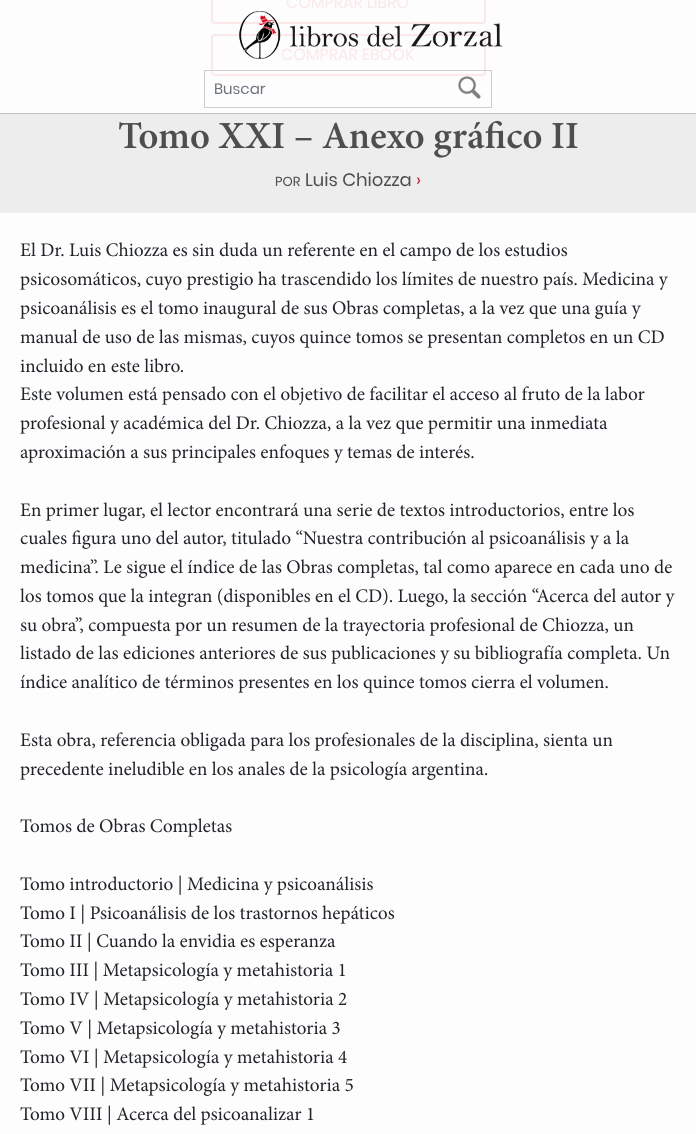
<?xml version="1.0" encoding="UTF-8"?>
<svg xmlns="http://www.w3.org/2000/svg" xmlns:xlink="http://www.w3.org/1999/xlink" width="696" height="1134">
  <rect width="100%" height="100%" fill="#fdfdfd" />
  <rect y="113" width="696" height="1" fill="#c1c1c1" />
  <rect x="212" y="35" width="273" height="40" rx="3" fill="none" stroke="#fbe9ea" stroke-width="2" />
  <rect x="204.5" y="70.5" width="287" height="37" fill="none" stroke="#cecece" />
  <image x="458" y="76" width="23" height="23" xlink:href="image2.png" />
  <rect x="212" y="-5" width="273" height="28" rx="3" fill="none" stroke="#fbe9ea" stroke-width="2" />
  <rect y="114" width="696" height="99" fill="#ededed" />
  <image x="119" y="120" width="459" height="38" xlink:href="image3.png" />
  <image x="20" y="242" width="548" height="19" xlink:href="image4.png" />
  <image x="20" y="271" width="648" height="19" xlink:href="image5.png" />
  <image x="20" y="300" width="621" height="19" xlink:href="image6.png" />
  <image x="20" y="329" width="644" height="19" xlink:href="image7.png" />
  <image x="20" y="358" width="163" height="15" xlink:href="image8.png" />
  <image x="20" y="386" width="625" height="19" xlink:href="image9.png" />
  <image x="20" y="415" width="588" height="19" xlink:href="image10.png" />
  <image x="20" y="444" width="454" height="19" xlink:href="image11.png" />
  <image x="20" y="502" width="614" height="19" xlink:href="image12.png" />
  <image x="20" y="530" width="609" height="19" xlink:href="image13.png" />
  <image x="20" y="559" width="652" height="19" xlink:href="image14.png" />
  <image x="20" y="588" width="655" height="19" xlink:href="image15.png" />
  <image x="20" y="617" width="614" height="19" xlink:href="image16.png" />
  <image x="20" y="645" width="650" height="19" xlink:href="image17.png" />
  <image x="20" y="674" width="588" height="19" xlink:href="image18.png" />
  <image x="20" y="732" width="593" height="19" xlink:href="image19.png" />
  <image x="20" y="761" width="468" height="19" xlink:href="image20.png" />
  <image x="20" y="818" width="212" height="19" xlink:href="image21.png" />
  <image x="20" y="875" width="353" height="20" xlink:href="image22.png" />
  <image x="20" y="904" width="375" height="20" xlink:href="image23.png" />
  <image x="20" y="932" width="316" height="20" xlink:href="image24.png" />
  <image x="20" y="961" width="325" height="20" xlink:href="image25.png" />
  <image x="20" y="990" width="327" height="20" xlink:href="image26.png" />
  <image x="20" y="1019" width="320" height="20" xlink:href="image27.png" />
  <image x="20" y="1048" width="327" height="20" xlink:href="image28.png" />
  <image x="20" y="1076" width="333" height="20" xlink:href="image29.png" />
  <image x="20" y="1105" width="294" height="20" xlink:href="image30.png" />
  <text x="214" y="94" style="font-family: Poppins; font-size: 15px; fill: #6c757d">Buscar</text>
  <text x="286" y="8" style="font-family: Poppins; font-size: 16px; fill: #fbe9ea">COMPRAR LIBRO</text>
  <text x="281" y="60" style="font-family: Poppins; font-size: 16px; fill: #fbe9ea">COMPRAR EBOOK</text>
  <image x="239" y="11" width="264" height="48" xlink:href="image1.png" />
  <text x="275" y="186" style="font-family: Poppins; font-size: 13px; fill: #4e4e4e">POR</text>
  <text x="305" y="186" style="font-family: Poppins; font-size: 18px; fill: #4e4e4e">Luis Chiozza</text>
  <text x="416" y="186" style="font-family: Poppins; font-size: 18px; fill: #d2232a">›</text>
</svg>
